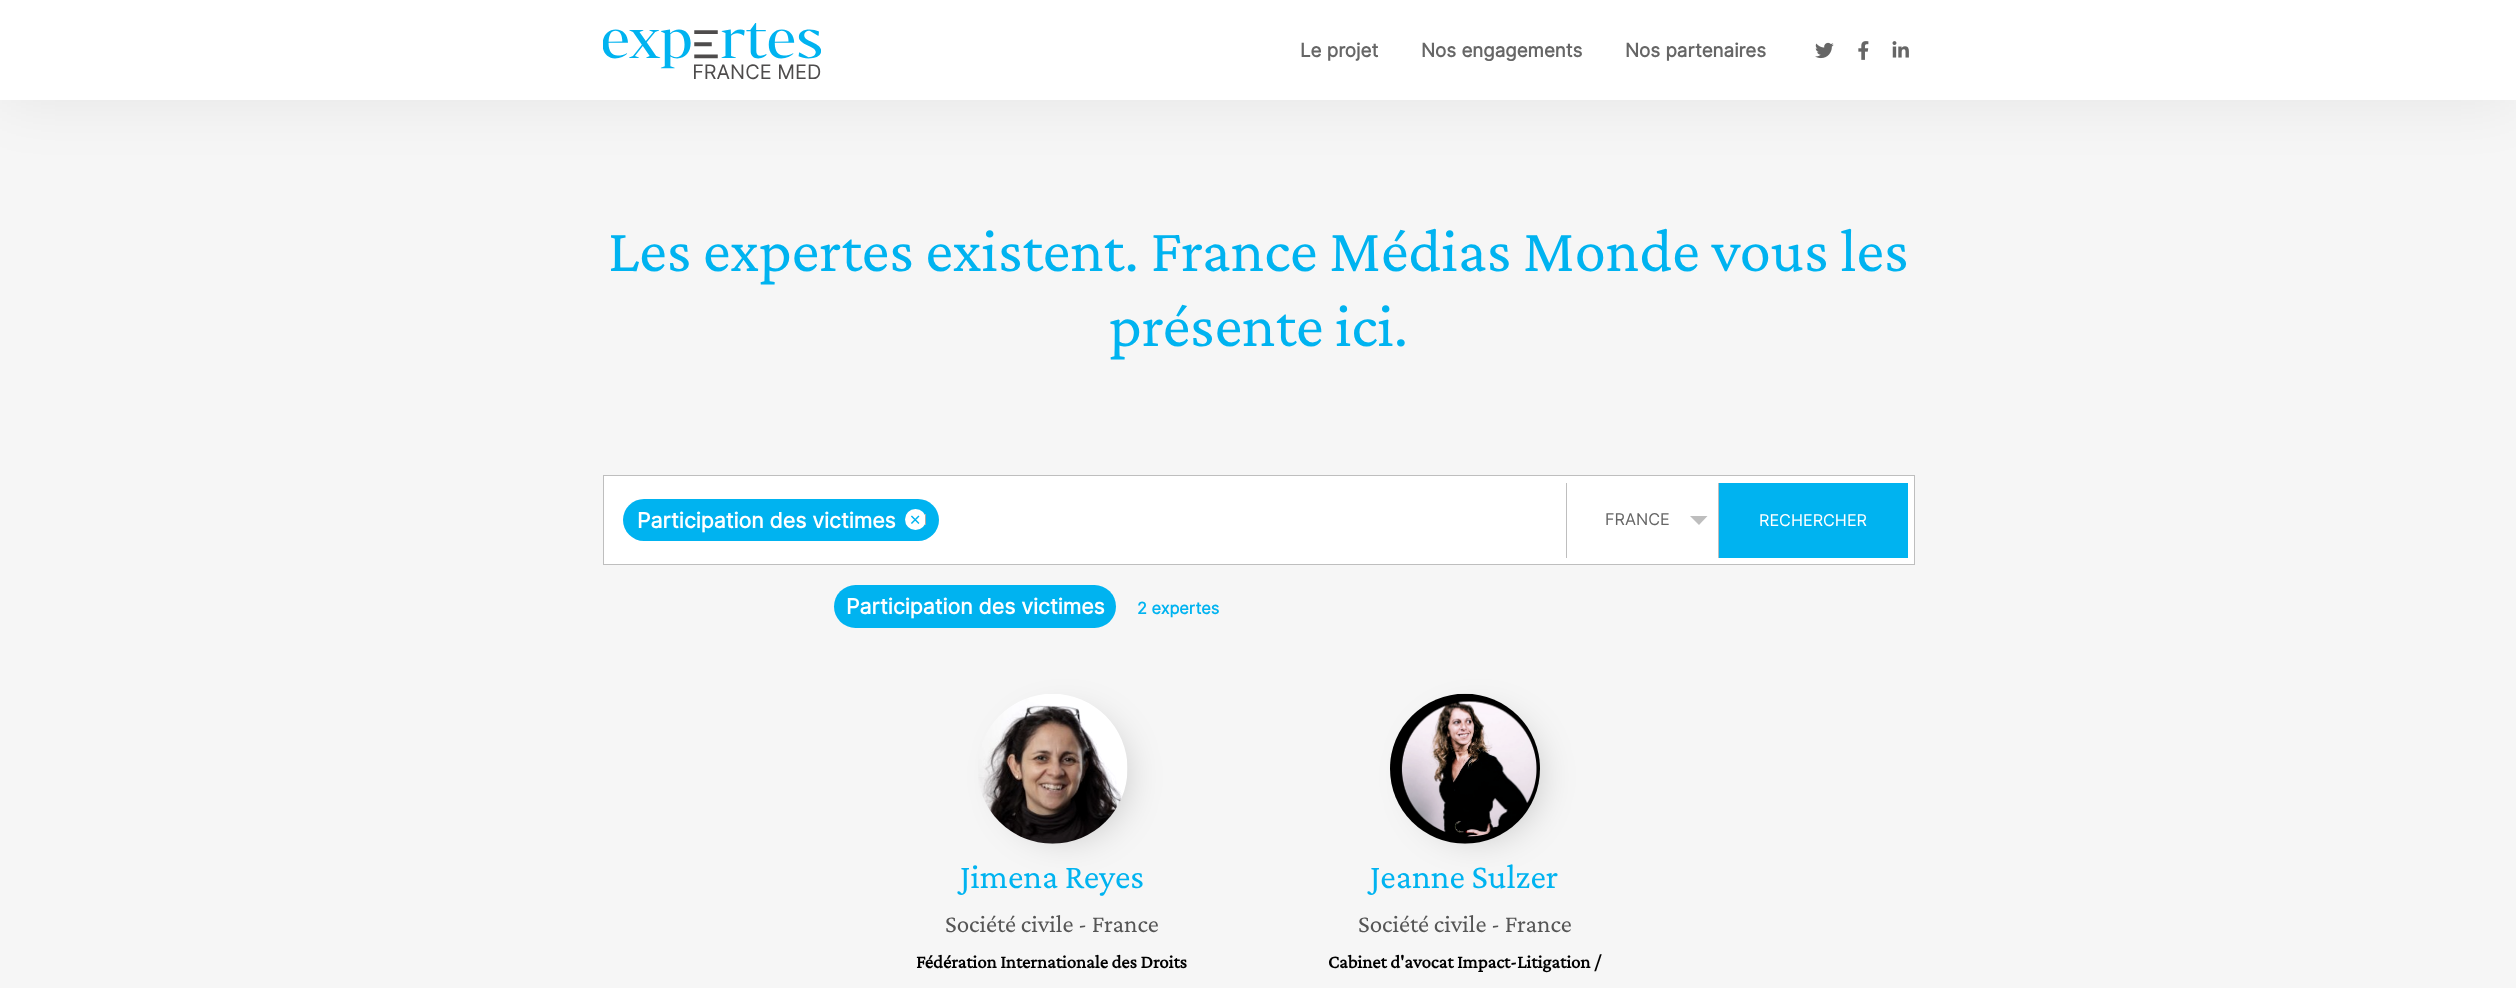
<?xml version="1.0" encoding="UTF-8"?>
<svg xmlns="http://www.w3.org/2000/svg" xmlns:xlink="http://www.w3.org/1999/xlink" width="2516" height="988">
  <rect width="100%" height="100%" fill="#f6f6f6" />
  <rect width="2516" height="100" fill="#000000" fill-opacity="0.07" filter="blur(31px)" />
  <rect width="2516" height="100" fill="#ffffff" />
  <image x="603" y="23" width="218" height="57" xlink:href="image1.png" />
  <image x="1815" y="42" width="19" height="17" xlink:href="image2.png" />
  <image x="1858" y="41" width="11" height="19" xlink:href="image3.png" />
  <image x="1892" y="41" width="17" height="17" xlink:href="image4.png" />
  <rect x="603.5" y="475.5" width="1311" height="89" fill="#ffffff" stroke="#bebebe" />
  <rect x="1566" y="483" width="1" height="75" fill="#bebebe" />
  <rect x="623" y="499" width="316" height="42" rx="21" fill="#00b3f0" />
  <circle cx="915.5" cy="519.5" r="10.5" fill="#ffffff" />
  <rect x="925" y="514" width="1" height="11" fill="#aaaaaa" />
  <path d="M 1690 516 h 17.5 l -8.5 9 z" fill="#bebebe" />
  <rect x="1718" y="483" width="1" height="75" fill="#bebebe" />
  <rect x="1719" y="483" width="189" height="75" fill="#00b3f0" />
  <rect x="834" y="585" width="282" height="43" rx="21.5" fill="#00b3f0" />
  <rect x="1009" y="720" width="112" height="113" rx="56" fill="#000000" fill-opacity="0.25" filter="blur(20px)" />
  <image x="978" y="694" width="150" height="150" xlink:href="image5.png" />
  <rect x="1421" y="720" width="113" height="113" rx="56.5" fill="#000000" fill-opacity="0.25" filter="blur(20px)" />
  <image x="1390" y="693" width="150" height="151" xlink:href="image6.png" />
  <text x="1300" y="57" style="font-family: Inter; font-size: 18.75px; font-weight: bold; fill: #666666">Le projet</text>
  <text x="1421" y="57" style="font-family: Inter; font-size: 18.75px; font-weight: bold; fill: #666666">Nos engagements</text>
  <text x="1625" y="57" style="font-family: Inter; font-size: 18.75px; font-weight: bold; fill: #666666">Nos partenaires</text>
  <text x="608" y="271" style="font-family: Crimson Pro; font-size: 62.5px; fill: #00b3f0">Les expertes existent. France Médias Monde vous les</text>
  <text x="1109" y="346" style="font-family: Crimson Pro; font-size: 62.5px; fill: #00b3f0">présente ici.</text>
  <text x="637" y="528" style="font-family: Inter; font-size: 21.25px; font-weight: bold; fill: #ffffff">Participation des victimes</text>
  <text x="909" y="525" style="font-family: Inter; font-size: 18.75px; fill: #00b3f0">×</text>
  <text x="1605" y="525" style="font-family: Inter; font-size: 16.25px; fill: #666666">FRANCE</text>
  <text x="1759" y="526" style="font-family: Inter; font-size: 16.25px; fill: #ffffff">RECHERCHER</text>
  <text x="846" y="614" style="font-family: Inter; font-size: 21.25px; font-weight: bold; fill: #ffffff">Participation des victimes</text>
  <text x="1137" y="614" style="font-family: Inter; font-size: 16.25px; font-weight: bold; fill: #00b3f0">2 expertes</text>
  <text x="960" y="888" style="font-family: Crimson Pro; font-size: 35px; fill: #00b3f0">Jimena Reyes</text>
  <text x="945" y="932" style="font-family: Crimson Pro; font-size: 25px; fill: #555555">Société civile - France</text>
  <text x="916" y="968" style="font-family: Crimson Pro; font-size: 18.75px; font-weight: bold; fill: #000000">Fédération Internationale des Droits</text>
  <text x="1370" y="888" style="font-family: Crimson Pro; font-size: 35px; fill: #00b3f0">Jeanne Sulzer</text>
  <text x="1358" y="932" style="font-family: Crimson Pro; font-size: 25px; fill: #555555">Société civile - France</text>
  <text x="1328" y="968" style="font-family: Crimson Pro; font-size: 18.75px; font-weight: bold; fill: #000000">Cabinet d'avocat Impact-Litigation /</text>
</svg>
